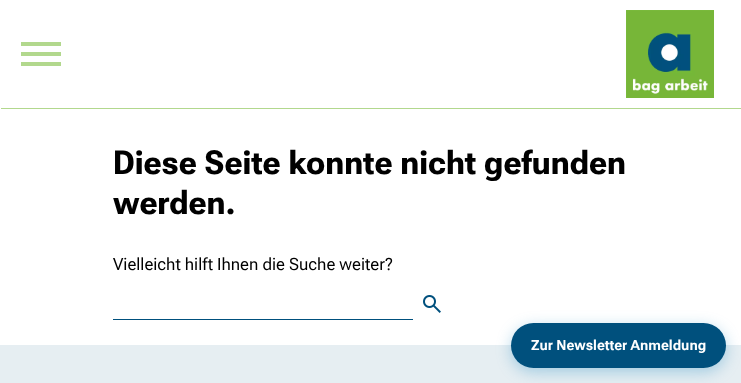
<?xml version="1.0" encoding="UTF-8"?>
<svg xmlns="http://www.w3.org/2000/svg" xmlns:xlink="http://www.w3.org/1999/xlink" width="741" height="383">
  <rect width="100%" height="100%" fill="#ffffff" />
  <path d="M 1 108 v 1 h 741 v -108 h -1 v 107 z" fill="#b2d88d" />
  <rect x="21" y="42" width="40" height="4" fill="#b2d88d" />
  <rect x="21" y="52" width="40" height="4" fill="#b2d88d" />
  <rect x="21" y="62" width="40" height="4" fill="#b2d88d" />
  <image x="626" y="10" width="88" height="88" xlink:href="image1.png" />
  <image x="423" y="295" width="18" height="18" xlink:href="image2.png" />
  <rect x="113" y="319" width="300" height="1" fill="#00507d" />
  <rect y="345" width="741" height="38" fill="#e6eef2" />
  <rect x="511" y="327" width="215" height="45" rx="22.5" fill="#007cba" fill-opacity="0.3" filter="blur(7.5px)" />
  <rect x="511" y="323" width="215" height="45" rx="22.5" fill="#00507d" />
  <text x="113" y="174" style="font-family: Roboto Flex; font-size: 33.1px; font-weight: bold; fill: #000000">Diese Seite konnte nicht gefunden</text>
  <text x="113" y="214" style="font-family: Roboto Flex; font-size: 33.1px; font-weight: bold; fill: #000000">werden.</text>
  <text x="113" y="270" style="font-family: Roboto Flex; font-size: 17px; fill: #000000">Vielleicht hilft Ihnen die Suche weiter?</text>
  <text x="531" y="350" style="font-family: 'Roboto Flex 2'; font-size: 14px; font-weight: bold; fill: #ffffff">Zur Newsletter Anmeldung</text>
</svg>
